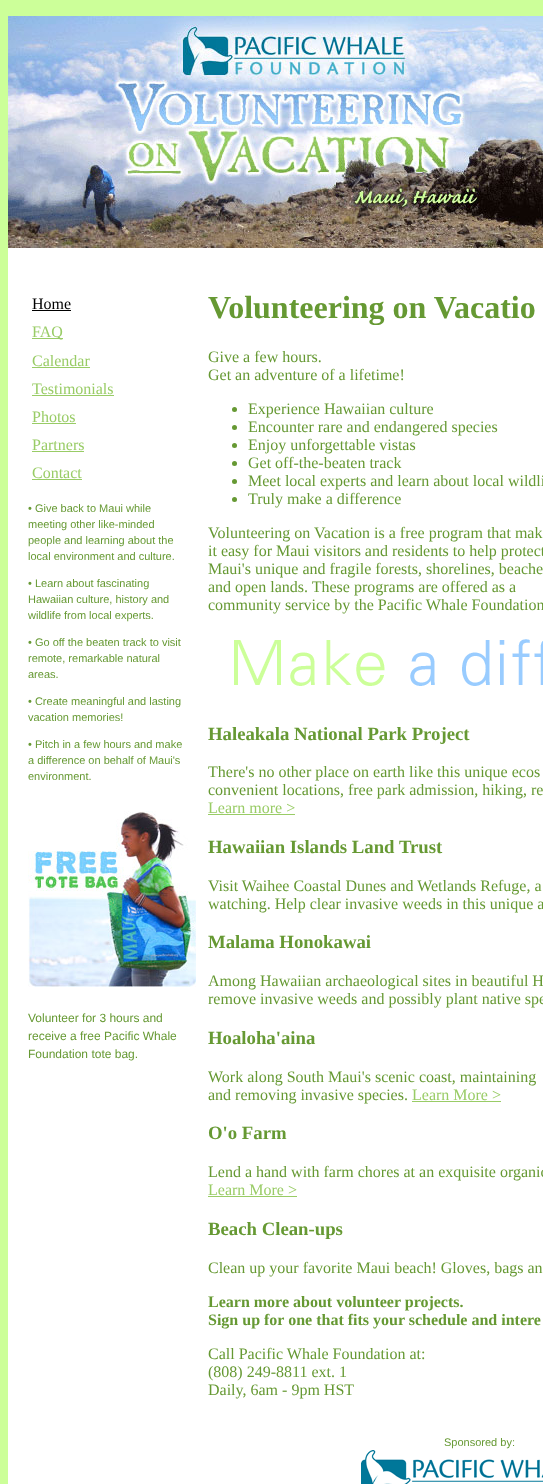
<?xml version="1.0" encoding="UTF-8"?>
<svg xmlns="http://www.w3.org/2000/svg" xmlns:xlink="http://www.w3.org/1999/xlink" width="543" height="1484">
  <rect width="100%" height="100%" fill="#ccff99" />
  <rect x="8" y="248" width="535" height="1236" fill="#ffffff" />
  <image x="8" y="16" width="535" height="232" xlink:href="image1.png" />
  <rect x="32" y="310" width="39" height="1" fill="#000000" />
  <rect x="32" y="338" width="31" height="1" fill="#99cc66" />
  <rect x="32" y="367" width="58" height="1" fill="#99cc66" />
  <rect x="32" y="395" width="82" height="1" fill="#99cc66" />
  <rect x="32" y="423" width="44" height="1" fill="#99cc66" />
  <rect x="32" y="451" width="52" height="1" fill="#99cc66" />
  <rect x="32" y="479" width="50" height="1" fill="#99cc66" />
  <image x="28" y="811" width="168" height="176" xlink:href="image2.png" />
  <circle cx="234.5" cy="409.5" r="2.5" fill="#669933" />
  <circle cx="234.5" cy="427.5" r="2.5" fill="#669933" />
  <circle cx="234.5" cy="445.5" r="2.5" fill="#669933" />
  <circle cx="234.5" cy="463.5" r="2.5" fill="#669933" />
  <circle cx="234.5" cy="481.5" r="2.5" fill="#669933" />
  <circle cx="234.5" cy="499.5" r="2.5" fill="#669933" />
  <image x="234" y="639" width="309" height="47" xlink:href="image3.png" />
  <rect x="208" y="814" width="87" height="1" fill="#99cc66" />
  <rect x="412" y="1101" width="89" height="1" fill="#99cc66" />
  <rect x="208" y="1196" width="89" height="1" fill="#99cc66" />
  <image x="361" y="1450" width="182" height="34" xlink:href="image4.png" />
  <text x="32" y="309" style="font-family: Liberation Serif; font-size: 16px; fill: #000000">Home</text>
  <text x="32" y="337" style="font-family: Liberation Serif; font-size: 16px; fill: #99cc66">FAQ</text>
  <text x="32" y="366" style="font-family: Liberation Serif; font-size: 16px; fill: #99cc66">Calendar</text>
  <text x="32" y="394" style="font-family: Liberation Serif; font-size: 16px; fill: #99cc66">Testimonials</text>
  <text x="32" y="422" style="font-family: Liberation Serif; font-size: 16px; fill: #99cc66">Photos</text>
  <text x="32" y="450" style="font-family: Liberation Serif; font-size: 16px; fill: #99cc66">Partners</text>
  <text x="32" y="478" style="font-family: Liberation Serif; font-size: 16px; fill: #99cc66">Contact</text>
  <text x="28" y="512" style="font-family: Liberation Sans; font-size: 11px; fill: #669933">• Give back to Maui while</text>
  <text x="28" y="528" style="font-family: Liberation Sans; font-size: 11px; fill: #669933">meeting other like-minded</text>
  <text x="28" y="544" style="font-family: Liberation Sans; font-size: 11px; fill: #669933">people and learning about the</text>
  <text x="28" y="560" style="font-family: Liberation Sans; font-size: 11px; fill: #669933">local environment and culture.</text>
  <text x="28" y="587" style="font-family: Liberation Sans; font-size: 11px; fill: #669933">• Learn about fascinating</text>
  <text x="28" y="603" style="font-family: Liberation Sans; font-size: 11px; fill: #669933">Hawaiian culture, history and</text>
  <text x="28" y="619" style="font-family: Liberation Sans; font-size: 11px; fill: #669933">wildlife from local experts.</text>
  <text x="28" y="646" style="font-family: Liberation Sans; font-size: 11px; fill: #669933">• Go off the beaten track to visit</text>
  <text x="28" y="662" style="font-family: Liberation Sans; font-size: 11px; fill: #669933">remote, remarkable natural</text>
  <text x="28" y="678" style="font-family: Liberation Sans; font-size: 11px; fill: #669933">areas.</text>
  <text x="28" y="705" style="font-family: Liberation Sans; font-size: 11px; fill: #669933">• Create meaningful and lasting</text>
  <text x="28" y="721" style="font-family: Liberation Sans; font-size: 11px; fill: #669933">vacation memories!</text>
  <text x="28" y="748" style="font-family: Liberation Sans; font-size: 11px; fill: #669933">• Pitch in a few hours and make</text>
  <text x="28" y="764" style="font-family: Liberation Sans; font-size: 11px; fill: #669933">a difference on behalf of Maui's</text>
  <text x="28" y="780" style="font-family: Liberation Sans; font-size: 11px; fill: #669933">environment.</text>
  <text x="28" y="1022" style="font-family: Liberation Sans; font-size: 12px; fill: #669933">Volunteer for 3 hours and</text>
  <text x="28" y="1040" style="font-family: Liberation Sans; font-size: 12px; fill: #669933">receive a free Pacific Whale</text>
  <text x="28" y="1058" style="font-family: Liberation Sans; font-size: 12px; fill: #669933">Foundation tote bag.</text>
  <text x="208" y="318" style="font-family: Liberation Serif; font-size: 32px; font-weight: bold; fill: #669933">Volunteering on Vacatio</text>
  <text x="208" y="362" style="font-family: Liberation Serif; font-size: 16px; fill: #669933">Give a few hours.</text>
  <text x="208" y="380" style="font-family: Liberation Serif; font-size: 16px; fill: #669933">Get an adventure of a lifetime!</text>
  <text x="248" y="414" style="font-family: Liberation Serif; font-size: 16px; fill: #669933">Experience Hawaiian culture</text>
  <text x="248" y="432" style="font-family: Liberation Serif; font-size: 16px; fill: #669933">Encounter rare and endangered species</text>
  <text x="248" y="450" style="font-family: Liberation Serif; font-size: 16px; fill: #669933">Enjoy unforgettable vistas</text>
  <text x="248" y="468" style="font-family: Liberation Serif; font-size: 16px; fill: #669933">Get off-the-beaten track</text>
  <text x="248" y="486" style="font-family: Liberation Serif; font-size: 16px; fill: #669933">Meet local experts and learn about local wildli</text>
  <text x="248" y="504" style="font-family: Liberation Serif; font-size: 16px; fill: #669933">Truly make a difference</text>
  <text x="208" y="538" style="font-family: Liberation Serif; font-size: 16px; fill: #669933">Volunteering on Vacation is a free program that mak</text>
  <text x="208" y="556" style="font-family: Liberation Serif; font-size: 16px; fill: #669933">it easy for Maui visitors and residents to help protect</text>
  <text x="208" y="574" style="font-family: Liberation Serif; font-size: 16px; fill: #669933">Maui's unique and fragile forests, shorelines, beache</text>
  <text x="208" y="592" style="font-family: Liberation Serif; font-size: 16px; fill: #669933">and open lands. These programs are offered as a</text>
  <text x="208" y="610" style="font-family: Liberation Serif; font-size: 16px; fill: #669933">community service by the Pacific Whale Foundation</text>
  <text x="208" y="740" style="font-family: Liberation Serif; font-size: 18.75px; font-weight: bold; fill: #669933">Haleakala National Park Project</text>
  <text x="208" y="777" style="font-family: Liberation Serif; font-size: 16px; fill: #669933">There's no other place on earth like this unique ecos</text>
  <text x="208" y="795" style="font-family: Liberation Serif; font-size: 16px; fill: #669933">convenient locations, free park admission, hiking, re</text>
  <text x="208" y="813" style="font-family: Liberation Serif; font-size: 16px; fill: #99cc66">Learn more &gt;</text>
  <text x="208" y="853" style="font-family: Liberation Serif; font-size: 18.75px; font-weight: bold; fill: #669933">Hawaiian Islands Land Trust</text>
  <text x="208" y="891" style="font-family: Liberation Serif; font-size: 16px; fill: #669933">Visit Waihee Coastal Dunes and Wetlands Refuge, a</text>
  <text x="208" y="909" style="font-family: Liberation Serif; font-size: 16px; fill: #669933">watching. Help clear invasive weeds in this unique a</text>
  <text x="208" y="948" style="font-family: Liberation Serif; font-size: 18.75px; font-weight: bold; fill: #669933">Malama Honokawai</text>
  <text x="208" y="986" style="font-family: Liberation Serif; font-size: 16px; fill: #669933">Among Hawaiian archaeological sites in beautiful H</text>
  <text x="208" y="1004" style="font-family: Liberation Serif; font-size: 16px; fill: #669933">remove invasive weeds and possibly plant native spe</text>
  <text x="208" y="1044" style="font-family: Liberation Serif; font-size: 18.75px; font-weight: bold; fill: #669933">Hoaloha'aina</text>
  <text x="208" y="1082" style="font-family: Liberation Serif; font-size: 16px; fill: #669933">Work along South Maui's scenic coast, maintaining</text>
  <text x="208" y="1100" style="font-family: Liberation Serif; font-size: 16px; fill: #669933">and removing invasive species.</text>
  <text x="412" y="1100" style="font-family: Liberation Serif; font-size: 16px; fill: #99cc66">Learn More &gt;</text>
  <text x="208" y="1139" style="font-family: Liberation Serif; font-size: 18.75px; font-weight: bold; fill: #669933">O'o Farm</text>
  <text x="208" y="1177" style="font-family: Liberation Serif; font-size: 16px; fill: #669933">Lend a hand with farm chores at an exquisite organic</text>
  <text x="208" y="1195" style="font-family: Liberation Serif; font-size: 16px; fill: #99cc66">Learn More &gt;</text>
  <text x="208" y="1235" style="font-family: Liberation Serif; font-size: 18.75px; font-weight: bold; fill: #669933">Beach Clean-ups</text>
  <text x="208" y="1273" style="font-family: Liberation Serif; font-size: 16px; fill: #669933">Clean up your favorite Maui beach! Gloves, bags an</text>
  <text x="208" y="1307" style="font-family: Liberation Serif; font-size: 16px; font-weight: bold; fill: #669933">Learn more about volunteer projects.</text>
  <text x="208" y="1325" style="font-family: Liberation Serif; font-size: 16px; font-weight: bold; fill: #669933">Sign up for one that fits your schedule and intere</text>
  <text x="208" y="1359" style="font-family: Liberation Serif; font-size: 16px; fill: #669933">Call Pacific Whale Foundation at:</text>
  <text x="208" y="1377" style="font-family: Liberation Serif; font-size: 16px; fill: #669933">(808) 249-8811 ext. 1</text>
  <text x="208" y="1395" style="font-family: Liberation Serif; font-size: 16px; fill: #669933">Daily, 6am - 9pm HST</text>
  <text x="444" y="1446" style="font-family: Liberation Sans; font-size: 11px; fill: #669933">Sponsored by:</text>
</svg>
